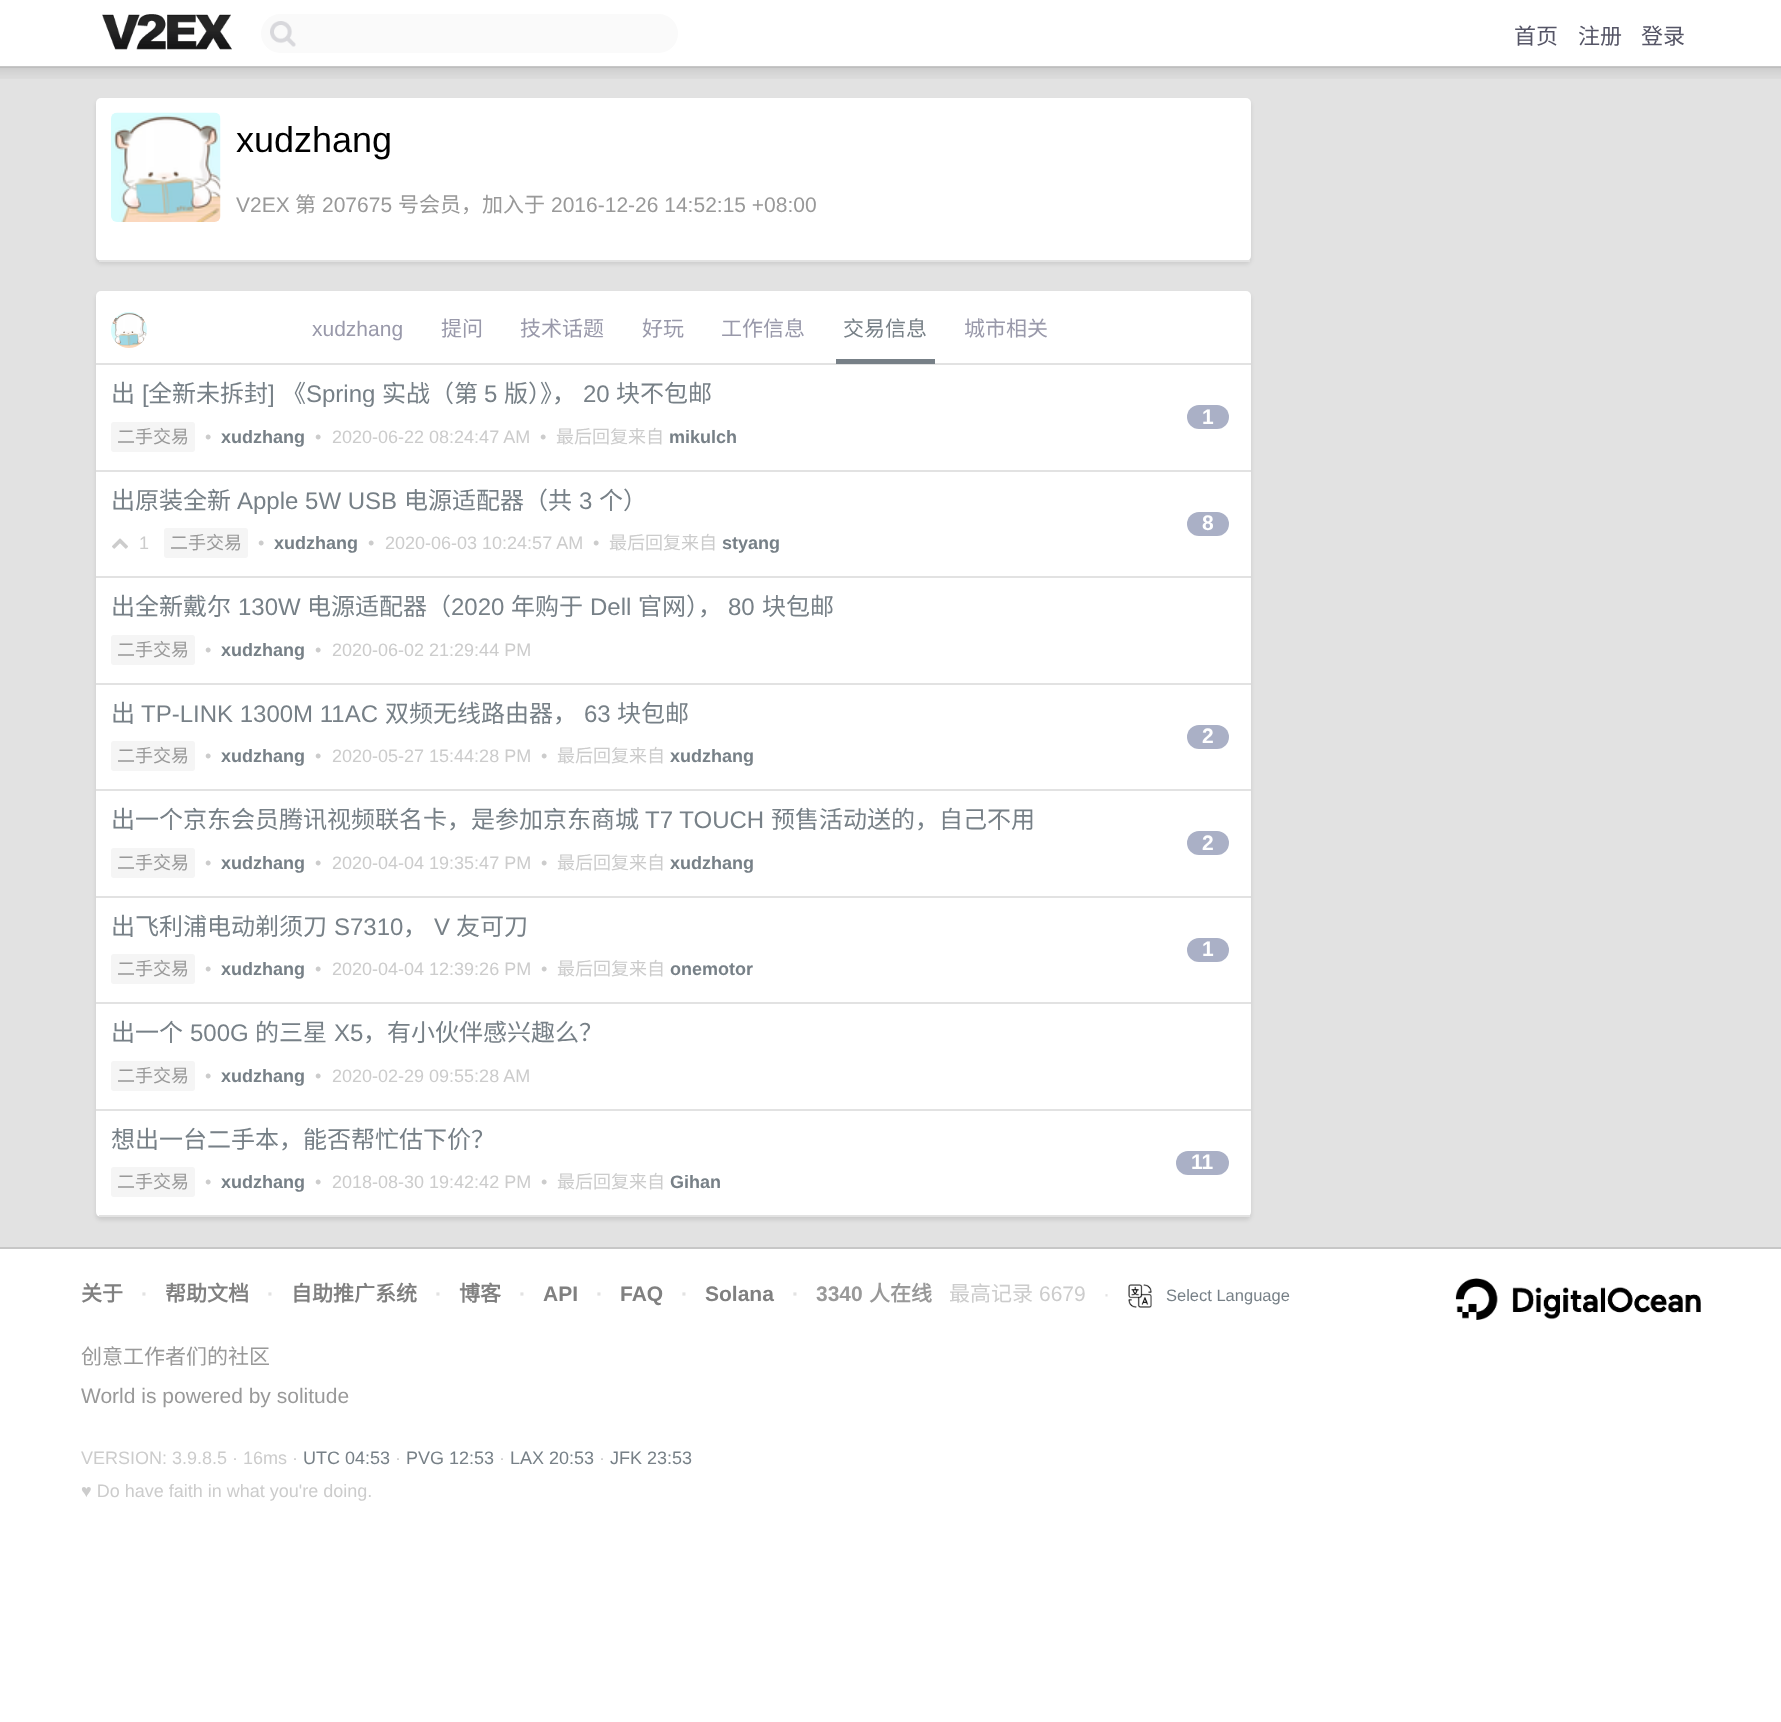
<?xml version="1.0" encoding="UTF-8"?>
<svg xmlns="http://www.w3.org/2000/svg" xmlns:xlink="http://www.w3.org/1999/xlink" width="1781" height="1722">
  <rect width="100%" height="100%" fill="#ffffff" />
  <rect y="66" width="1781" height="2" fill="#c7c7c7" />
  <image x="102" y="14" width="130" height="36" xlink:href="image1.png" />
  <rect x="261" y="14" width="417" height="39" rx="19.5" fill="#fafafa" />
  <image x="270" y="21" width="26" height="26" xlink:href="image2.png" />
  <rect y="68" width="1781" height="1179" fill="#e2e2e2" />
  <image x="0" y="67" width="1781" height="12" xlink:href="image3.png" />
  <rect x="96" y="101" width="1155" height="163" rx="5" fill="#000000" fill-opacity="0.1" filter="blur(2px)" />
  <rect x="96" y="98" width="1155" height="163" rx="5" fill="#ffffff" />
  <rect x="99" y="260" width="1151" height="2" fill="#e2e2e2" />
  <image x="111" y="112" width="110" height="110" xlink:href="image4.png" />
  <rect x="96" y="294" width="1155" height="926" rx="5" fill="#000000" fill-opacity="0.1" filter="blur(2px)" />
  <rect x="96" y="291" width="1155" height="926" rx="5" fill="#ffffff" />
  <rect x="99" y="1215" width="1151" height="2" fill="#e2e2e2" />
  <rect x="96" y="363" width="1155" height="2" fill="#e2e2e2" />
  <image x="111" y="312" width="36" height="36" xlink:href="image5.png" />
  <rect x="836" y="359" width="99" height="5" fill="#778087" />
  <rect x="96" y="470" width="1155" height="2" fill="#e2e2e2" />
  <rect x="111" y="422" width="84" height="30" rx="3" fill="#f5f5f5" />
  <rect x="1187" y="405" width="42" height="24" rx="12" fill="#aab0c6" />
  <rect x="96" y="576" width="1155" height="2" fill="#e2e2e2" />
  <image x="112" y="538" width="16" height="11" xlink:href="image6.png" />
  <rect x="164" y="528" width="84" height="30" rx="3" fill="#f5f5f5" />
  <rect x="1187" y="512" width="42" height="24" rx="12" fill="#aab0c6" />
  <rect x="96" y="683" width="1155" height="2" fill="#e2e2e2" />
  <rect x="111" y="635" width="84" height="30" rx="3" fill="#f5f5f5" />
  <rect x="96" y="789" width="1155" height="2" fill="#e2e2e2" />
  <rect x="111" y="741" width="84" height="30" rx="3" fill="#f5f5f5" />
  <rect x="1187" y="725" width="42" height="24" rx="12" fill="#aab0c6" />
  <rect x="96" y="896" width="1155" height="2" fill="#e2e2e2" />
  <rect x="111" y="848" width="84" height="30" rx="3" fill="#f5f5f5" />
  <rect x="1187" y="831" width="42" height="24" rx="12" fill="#aab0c6" />
  <rect x="96" y="1002" width="1155" height="2" fill="#e2e2e2" />
  <rect x="111" y="954" width="84" height="30" rx="3" fill="#f5f5f5" />
  <rect x="1187" y="938" width="42" height="24" rx="12" fill="#aab0c6" />
  <rect x="96" y="1109" width="1155" height="2" fill="#e2e2e2" />
  <rect x="111" y="1061" width="84" height="30" rx="3" fill="#f5f5f5" />
  <rect x="111" y="1167" width="84" height="30" rx="3" fill="#f5f5f5" />
  <rect x="1176" y="1151" width="53" height="24" rx="12" fill="#aab0c6" />
  <rect y="1247" width="1781" height="2" fill="#c7c7c7" />
  <image x="1128" y="1284" width="24" height="24" xlink:href="image7.png" />
  <image x="1455" y="1278" width="246" height="42" xlink:href="image8.png" />
  <text x="1514" y="44" style="font-family: Noto Sans CJK SC; font-size: 22px; fill: #555566">首页</text>
  <text x="1578" y="44" style="font-family: Noto Sans CJK SC; font-size: 22px; fill: #555566">注册</text>
  <text x="1641" y="44" style="font-family: Noto Sans CJK SC; font-size: 22px; fill: #555566">登录</text>
  <text x="236" y="152" style="font-family: Liberation Sans; font-size: 36px; fill: #000000">xudzhang</text>
  <text x="236" y="212" style="font-family: Liberation Sans; font-size: 21px; fill: #999999">V2EX</text>
  <text x="295" y="212" style="font-family: Noto Sans CJK SC; font-size: 21px; fill: #999999">第</text>
  <text x="322" y="212" style="font-family: Liberation Sans; font-size: 21px; fill: #999999">207675</text>
  <text x="398" y="212" style="font-family: Noto Sans CJK SC; font-size: 21px; fill: #999999">号会员，加入于</text>
  <text x="551" y="212" style="font-family: Liberation Sans; font-size: 21px; fill: #999999">2016-12-26 14:52:15 +08:00</text>
  <text x="312" y="336" style="font-family: Liberation Sans; font-size: 21px; fill: #9999aa">xudzhang</text>
  <text x="441" y="336" style="font-family: Noto Sans CJK SC; font-size: 21px; fill: #9999aa">提问</text>
  <text x="520" y="336" style="font-family: Noto Sans CJK SC; font-size: 21px; fill: #9999aa">技术话题</text>
  <text x="642" y="336" style="font-family: Noto Sans CJK SC; font-size: 21px; fill: #9999aa">好玩</text>
  <text x="721" y="336" style="font-family: Noto Sans CJK SC; font-size: 21px; fill: #9999aa">工作信息</text>
  <text x="843" y="336" style="font-family: Noto Sans CJK SC; font-size: 21px; fill: #778087">交易信息</text>
  <text x="964" y="336" style="font-family: Noto Sans CJK SC; font-size: 21px; fill: #9999aa">城市相关</text>
  <text x="111" y="402" style="font-family: Noto Sans CJK SC; font-size: 24px; fill: #778087">出</text>
  <text x="142" y="402" style="font-family: Liberation Sans; font-size: 24px; fill: #778087">[</text>
  <text x="148" y="402" style="font-family: Noto Sans CJK SC; font-size: 24px; fill: #778087">全新未拆封</text>
  <text x="268" y="402" style="font-family: Liberation Sans; font-size: 24px; fill: #778087">]</text>
  <text x="282" y="402" style="font-family: Noto Sans CJK SC; font-size: 24px; fill: #778087">《</text>
  <text x="306" y="402" style="font-family: Liberation Sans; font-size: 24px; fill: #778087">Spring</text>
  <text x="382" y="402" style="font-family: Noto Sans CJK SC; font-size: 24px; fill: #778087">实战（第</text>
  <text x="484" y="402" style="font-family: Liberation Sans; font-size: 24px; fill: #778087">5</text>
  <text x="504" y="402" style="font-family: Noto Sans CJK SC; font-size: 24px; fill: #778087">版）》，</text>
  <text x="583" y="402" style="font-family: Liberation Sans; font-size: 24px; fill: #778087">20</text>
  <text x="616" y="402" style="font-family: Noto Sans CJK SC; font-size: 24px; fill: #778087">块不包邮</text>
  <text x="117" y="443" style="font-family: Noto Sans CJK SC; font-size: 18px; fill: #999999">二手交易</text>
  <text x="205" y="443" style="font-family: Liberation Sans; font-size: 18px; fill: #cccccc">•</text>
  <text x="221" y="443" style="font-family: Liberation Sans; font-size: 18px; font-weight: bold; fill: #778087">xudzhang</text>
  <text x="315" y="443" style="font-family: Liberation Sans; font-size: 18px; fill: #cccccc">•</text>
  <text x="332" y="443" style="font-family: Liberation Sans; font-size: 18px; fill: #cccccc">2020-06-22 08:24:47 AM</text>
  <text x="540" y="443" style="font-family: Liberation Sans; font-size: 18px; fill: #cccccc">•</text>
  <text x="556" y="443" style="font-family: Noto Sans CJK SC; font-size: 18px; fill: #cccccc">最后回复来自</text>
  <text x="669" y="443" style="font-family: Liberation Sans; font-size: 18px; font-weight: bold; fill: #778087">mikulch</text>
  <text x="1202" y="424" style="font-family: Liberation Sans; font-size: 21px; font-weight: bold; fill: #ffffff">1</text>
  <text x="111" y="509" style="font-family: Noto Sans CJK SC; font-size: 24px; fill: #778087">出原装全新</text>
  <text x="237" y="509" style="font-family: Liberation Sans; font-size: 24px; fill: #778087">Apple 5W USB</text>
  <text x="404" y="509" style="font-family: Noto Sans CJK SC; font-size: 24px; fill: #778087">电源适配器（共</text>
  <text x="579" y="509" style="font-family: Liberation Sans; font-size: 24px; fill: #778087">3</text>
  <text x="599" y="509" style="font-family: Noto Sans CJK SC; font-size: 24px; fill: #778087">个）</text>
  <text x="139" y="549" style="font-family: Liberation Sans; font-size: 18px; fill: #cccccc">1</text>
  <text x="170" y="549" style="font-family: Noto Sans CJK SC; font-size: 18px; fill: #999999">二手交易</text>
  <text x="258" y="549" style="font-family: Liberation Sans; font-size: 18px; fill: #cccccc">•</text>
  <text x="274" y="549" style="font-family: Liberation Sans; font-size: 18px; font-weight: bold; fill: #778087">xudzhang</text>
  <text x="368" y="549" style="font-family: Liberation Sans; font-size: 18px; fill: #cccccc">•</text>
  <text x="385" y="549" style="font-family: Liberation Sans; font-size: 18px; fill: #cccccc">2020-06-03 10:24:57 AM</text>
  <text x="593" y="549" style="font-family: Liberation Sans; font-size: 18px; fill: #cccccc">•</text>
  <text x="609" y="549" style="font-family: Noto Sans CJK SC; font-size: 18px; fill: #cccccc">最后回复来自</text>
  <text x="722" y="549" style="font-family: Liberation Sans; font-size: 18px; font-weight: bold; fill: #778087">styang</text>
  <text x="1202" y="530" style="font-family: Liberation Sans; font-size: 21px; font-weight: bold; fill: #ffffff">8</text>
  <text x="111" y="615" style="font-family: Noto Sans CJK SC; font-size: 24px; fill: #778087">出全新戴尔</text>
  <text x="238" y="615" style="font-family: Liberation Sans; font-size: 24px; fill: #778087">130W</text>
  <text x="307" y="615" style="font-family: Noto Sans CJK SC; font-size: 24px; fill: #778087">电源适配器（</text>
  <text x="451" y="615" style="font-family: Liberation Sans; font-size: 24px; fill: #778087">2020</text>
  <text x="511" y="615" style="font-family: Noto Sans CJK SC; font-size: 24px; fill: #778087">年购于</text>
  <text x="590" y="615" style="font-family: Liberation Sans; font-size: 24px; fill: #778087">Dell</text>
  <text x="638" y="615" style="font-family: Noto Sans CJK SC; font-size: 24px; fill: #778087">官网），</text>
  <text x="728" y="615" style="font-family: Liberation Sans; font-size: 24px; fill: #778087">80</text>
  <text x="762" y="615" style="font-family: Noto Sans CJK SC; font-size: 24px; fill: #778087">块包邮</text>
  <text x="117" y="656" style="font-family: Noto Sans CJK SC; font-size: 18px; fill: #999999">二手交易</text>
  <text x="205" y="656" style="font-family: Liberation Sans; font-size: 18px; fill: #cccccc">•</text>
  <text x="221" y="656" style="font-family: Liberation Sans; font-size: 18px; font-weight: bold; fill: #778087">xudzhang</text>
  <text x="315" y="656" style="font-family: Liberation Sans; font-size: 18px; fill: #cccccc">•</text>
  <text x="332" y="656" style="font-family: Liberation Sans; font-size: 18px; fill: #cccccc">2020-06-02 21:29:44 PM</text>
  <text x="111" y="722" style="font-family: Noto Sans CJK SC; font-size: 24px; fill: #778087">出</text>
  <text x="141" y="722" style="font-family: Liberation Sans; font-size: 24px; fill: #778087">TP-LINK 1300M 11AC</text>
  <text x="385" y="722" style="font-family: Noto Sans CJK SC; font-size: 24px; fill: #778087">双频无线路由器，</text>
  <text x="584" y="722" style="font-family: Liberation Sans; font-size: 24px; fill: #778087">63</text>
  <text x="617" y="722" style="font-family: Noto Sans CJK SC; font-size: 24px; fill: #778087">块包邮</text>
  <text x="117" y="762" style="font-family: Noto Sans CJK SC; font-size: 18px; fill: #999999">二手交易</text>
  <text x="205" y="762" style="font-family: Liberation Sans; font-size: 18px; fill: #cccccc">•</text>
  <text x="221" y="762" style="font-family: Liberation Sans; font-size: 18px; font-weight: bold; fill: #778087">xudzhang</text>
  <text x="315" y="762" style="font-family: Liberation Sans; font-size: 18px; fill: #cccccc">•</text>
  <text x="332" y="762" style="font-family: Liberation Sans; font-size: 18px; fill: #cccccc">2020-05-27 15:44:28 PM</text>
  <text x="541" y="762" style="font-family: Liberation Sans; font-size: 18px; fill: #cccccc">•</text>
  <text x="557" y="762" style="font-family: Noto Sans CJK SC; font-size: 18px; fill: #cccccc">最后回复来自</text>
  <text x="670" y="762" style="font-family: Liberation Sans; font-size: 18px; font-weight: bold; fill: #778087">xudzhang</text>
  <text x="1202" y="743" style="font-family: Liberation Sans; font-size: 21px; font-weight: bold; fill: #ffffff">2</text>
  <text x="111" y="828" style="font-family: Noto Sans CJK SC; font-size: 24px; fill: #778087">出一个京东会员腾讯视频联名卡，是参加京东商城</text>
  <text x="645" y="828" style="font-family: Liberation Sans; font-size: 24px; fill: #778087">T7 TOUCH</text>
  <text x="771" y="828" style="font-family: Noto Sans CJK SC; font-size: 24px; fill: #778087">预售活动送的，自己不用</text>
  <text x="117" y="869" style="font-family: Noto Sans CJK SC; font-size: 18px; fill: #999999">二手交易</text>
  <text x="205" y="869" style="font-family: Liberation Sans; font-size: 18px; fill: #cccccc">•</text>
  <text x="221" y="869" style="font-family: Liberation Sans; font-size: 18px; font-weight: bold; fill: #778087">xudzhang</text>
  <text x="315" y="869" style="font-family: Liberation Sans; font-size: 18px; fill: #cccccc">•</text>
  <text x="332" y="869" style="font-family: Liberation Sans; font-size: 18px; fill: #cccccc">2020-04-04 19:35:47 PM</text>
  <text x="541" y="869" style="font-family: Liberation Sans; font-size: 18px; fill: #cccccc">•</text>
  <text x="557" y="869" style="font-family: Noto Sans CJK SC; font-size: 18px; fill: #cccccc">最后回复来自</text>
  <text x="670" y="869" style="font-family: Liberation Sans; font-size: 18px; font-weight: bold; fill: #778087">xudzhang</text>
  <text x="1202" y="850" style="font-family: Liberation Sans; font-size: 21px; font-weight: bold; fill: #ffffff">2</text>
  <text x="111" y="935" style="font-family: Noto Sans CJK SC; font-size: 24px; fill: #778087">出飞利浦电动剃须刀</text>
  <text x="334" y="935" style="font-family: Liberation Sans; font-size: 24px; fill: #778087">S7310</text>
  <text x="403" y="935" style="font-family: Noto Sans CJK SC; font-size: 24px; fill: #778087">，</text>
  <text x="434" y="935" style="font-family: Liberation Sans; font-size: 24px; fill: #778087">V</text>
  <text x="456" y="935" style="font-family: Noto Sans CJK SC; font-size: 24px; fill: #778087">友可刀</text>
  <text x="117" y="975" style="font-family: Noto Sans CJK SC; font-size: 18px; fill: #999999">二手交易</text>
  <text x="205" y="975" style="font-family: Liberation Sans; font-size: 18px; fill: #cccccc">•</text>
  <text x="221" y="975" style="font-family: Liberation Sans; font-size: 18px; font-weight: bold; fill: #778087">xudzhang</text>
  <text x="315" y="975" style="font-family: Liberation Sans; font-size: 18px; fill: #cccccc">•</text>
  <text x="332" y="975" style="font-family: Liberation Sans; font-size: 18px; fill: #cccccc">2020-04-04 12:39:26 PM</text>
  <text x="541" y="975" style="font-family: Liberation Sans; font-size: 18px; fill: #cccccc">•</text>
  <text x="557" y="975" style="font-family: Noto Sans CJK SC; font-size: 18px; fill: #cccccc">最后回复来自</text>
  <text x="670" y="975" style="font-family: Liberation Sans; font-size: 18px; font-weight: bold; fill: #778087">onemotor</text>
  <text x="1202" y="956" style="font-family: Liberation Sans; font-size: 21px; font-weight: bold; fill: #ffffff">1</text>
  <text x="111" y="1041" style="font-family: Noto Sans CJK SC; font-size: 24px; fill: #778087">出一个</text>
  <text x="190" y="1041" style="font-family: Liberation Sans; font-size: 24px; fill: #778087">500G</text>
  <text x="255" y="1041" style="font-family: Noto Sans CJK SC; font-size: 24px; fill: #778087">的三星</text>
  <text x="334" y="1041" style="font-family: Liberation Sans; font-size: 24px; fill: #778087">X5</text>
  <text x="363" y="1041" style="font-family: Noto Sans CJK SC; font-size: 24px; fill: #778087">，有小伙伴感兴趣么？</text>
  <text x="117" y="1082" style="font-family: Noto Sans CJK SC; font-size: 18px; fill: #999999">二手交易</text>
  <text x="205" y="1082" style="font-family: Liberation Sans; font-size: 18px; fill: #cccccc">•</text>
  <text x="221" y="1082" style="font-family: Liberation Sans; font-size: 18px; font-weight: bold; fill: #778087">xudzhang</text>
  <text x="315" y="1082" style="font-family: Liberation Sans; font-size: 18px; fill: #cccccc">•</text>
  <text x="332" y="1082" style="font-family: Liberation Sans; font-size: 18px; fill: #cccccc">2020-02-29 09:55:28 AM</text>
  <text x="111" y="1148" style="font-family: Noto Sans CJK SC; font-size: 24px; fill: #778087">想出一台二手本，能否帮忙估下价？</text>
  <text x="117" y="1188" style="font-family: Noto Sans CJK SC; font-size: 18px; fill: #999999">二手交易</text>
  <text x="205" y="1188" style="font-family: Liberation Sans; font-size: 18px; fill: #cccccc">•</text>
  <text x="221" y="1188" style="font-family: Liberation Sans; font-size: 18px; font-weight: bold; fill: #778087">xudzhang</text>
  <text x="315" y="1188" style="font-family: Liberation Sans; font-size: 18px; fill: #cccccc">•</text>
  <text x="332" y="1188" style="font-family: Liberation Sans; font-size: 18px; fill: #cccccc">2018-08-30 19:42:42 PM</text>
  <text x="541" y="1188" style="font-family: Liberation Sans; font-size: 18px; fill: #cccccc">•</text>
  <text x="557" y="1188" style="font-family: Noto Sans CJK SC; font-size: 18px; fill: #cccccc">最后回复来自</text>
  <text x="670" y="1188" style="font-family: Liberation Sans; font-size: 18px; font-weight: bold; fill: #778087">Gihan</text>
  <text x="1191" y="1169" style="font-family: Liberation Sans; font-size: 21px; font-weight: bold; fill: #ffffff">11</text>
  <text x="81" y="1301" style="font-family: Noto Sans CJK SC; font-size: 21px; font-weight: bold; fill: #808080">关于</text>
  <text x="141" y="1301" style="font-family: Liberation Sans; font-size: 21px; font-weight: bold; fill: #e2e2e2">·</text>
  <text x="165" y="1301" style="font-family: Noto Sans CJK SC; font-size: 21px; font-weight: bold; fill: #808080">帮助文档</text>
  <text x="267" y="1301" style="font-family: Liberation Sans; font-size: 21px; font-weight: bold; fill: #e2e2e2">·</text>
  <text x="291" y="1301" style="font-family: Noto Sans CJK SC; font-size: 21px; font-weight: bold; fill: #808080">自助推广系统</text>
  <text x="435" y="1301" style="font-family: Liberation Sans; font-size: 21px; font-weight: bold; fill: #e2e2e2">·</text>
  <text x="459" y="1301" style="font-family: Noto Sans CJK SC; font-size: 21px; font-weight: bold; fill: #808080">博客</text>
  <text x="519" y="1301" style="font-family: Liberation Sans; font-size: 21px; font-weight: bold; fill: #e2e2e2">·</text>
  <text x="543" y="1301" style="font-family: Liberation Sans; font-size: 21px; font-weight: bold; fill: #808080">API</text>
  <text x="596" y="1301" style="font-family: Liberation Sans; font-size: 21px; font-weight: bold; fill: #e2e2e2">·</text>
  <text x="620" y="1301" style="font-family: Liberation Sans; font-size: 21px; font-weight: bold; fill: #808080">FAQ</text>
  <text x="681" y="1301" style="font-family: Liberation Sans; font-size: 21px; font-weight: bold; fill: #e2e2e2">·</text>
  <text x="705" y="1301" style="font-family: Liberation Sans; font-size: 21px; font-weight: bold; fill: #808080">Solana</text>
  <text x="792" y="1301" style="font-family: Liberation Sans; font-size: 21px; font-weight: bold; fill: #e2e2e2">·</text>
  <text x="816" y="1301" style="font-family: Liberation Sans; font-size: 21px; font-weight: bold; fill: #999999">3340</text>
  <text x="869" y="1301" style="font-family: Noto Sans CJK SC; font-size: 21px; font-weight: bold; fill: #999999">人在线</text>
  <text x="949" y="1301" style="font-family: Noto Sans CJK SC; font-size: 21px; fill: #cccccc">最高记录</text>
  <text x="1039" y="1301" style="font-family: Liberation Sans; font-size: 21px; fill: #cccccc">6679</text>
  <text x="1103" y="1301" style="font-family: Liberation Sans; font-size: 21px; fill: #e2e2e2">·</text>
  <text x="1166" y="1301" style="font-family: Liberation Sans; font-size: 16.5px; fill: #778087">Select Language</text>
  <text x="81" y="1364" style="font-family: Noto Sans CJK SC; font-size: 21px; fill: #999999">创意工作者们的社区</text>
  <text x="81" y="1403" style="font-family: Liberation Sans; font-size: 21px; fill: #999999">World is powered by solitude</text>
  <text x="81" y="1464" style="font-family: Liberation Sans; font-size: 18px; fill: #cccccc">VERSION: 3.9.8.5 · 16ms ·</text>
  <text x="303" y="1464" style="font-family: Liberation Sans; font-size: 18px; fill: #778087">UTC 04:53</text>
  <text x="395" y="1464" style="font-family: Liberation Sans; font-size: 18px; fill: #cccccc">·</text>
  <text x="406" y="1464" style="font-family: Liberation Sans; font-size: 18px; fill: #778087">PVG 12:53</text>
  <text x="499" y="1464" style="font-family: Liberation Sans; font-size: 18px; fill: #cccccc">·</text>
  <text x="510" y="1464" style="font-family: Liberation Sans; font-size: 18px; fill: #778087">LAX 20:53</text>
  <text x="599" y="1464" style="font-family: Liberation Sans; font-size: 18px; fill: #cccccc">·</text>
  <text x="610" y="1464" style="font-family: Liberation Sans; font-size: 18px; fill: #778087">JFK 23:53</text>
  <text x="81" y="1497" style="font-family: Liberation Sans; font-size: 18px; fill: #cccccc">♥ Do have faith in what you're doing.</text>
</svg>
